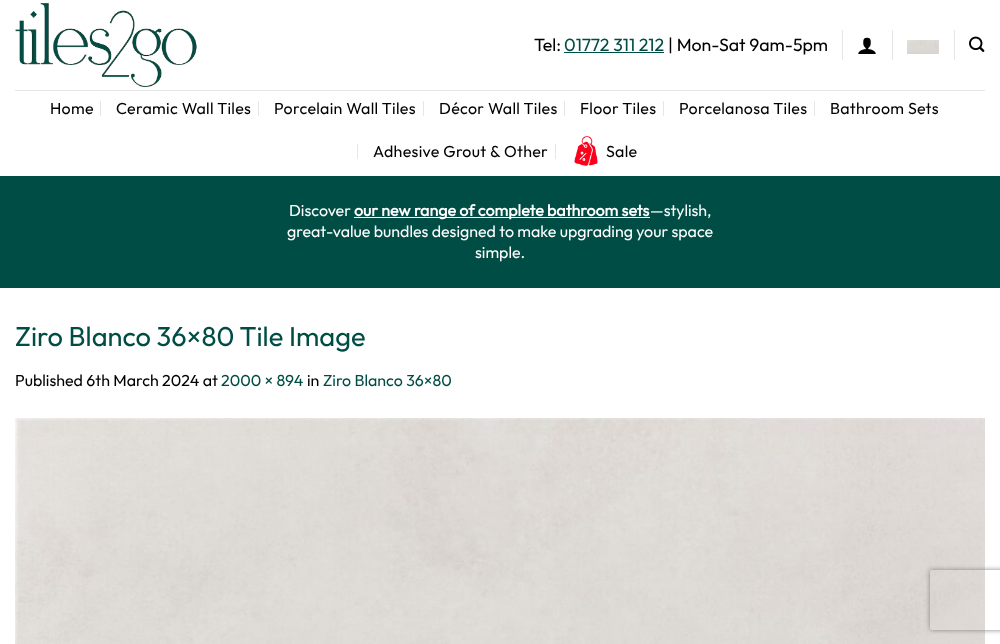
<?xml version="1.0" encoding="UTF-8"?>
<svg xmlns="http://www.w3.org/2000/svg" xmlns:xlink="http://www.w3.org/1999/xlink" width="1000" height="644">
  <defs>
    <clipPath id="clip1"><path d="M 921 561 h 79 v 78 h -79 z m 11 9 h 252 c 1 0 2 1 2 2 v 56 c 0 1 -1 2 -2 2 h -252 c -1 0 -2 -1 -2 -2 v -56 c 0 -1 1 -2 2 -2 z" clip-rule="evenodd" /></clipPath>
  </defs>
  <rect width="100%" height="100%" fill="#ffffff" />
  <image x="15" y="3" width="182" height="85" xlink:href="image1.png" />
  <rect x="564" y="52" width="100" height="1" fill="#004d45" />
  <rect x="842" y="30" width="1" height="30" fill="#e6e6e6" />
  <image x="858" y="37" width="18" height="17" xlink:href="image2.png" />
  <rect x="892" y="30" width="1" height="30" fill="#e6e6e6" />
  <image x="907" y="40" width="32" height="14" xlink:href="image3.png" />
  <rect x="954" y="30" width="1" height="30" fill="#e6e6e6" />
  <image x="969" y="36" width="16" height="16" xlink:href="image4.png" />
  <rect x="15" y="90" width="970" height="1" fill="#e6e6e6" />
  <rect x="100" y="101" width="1" height="15" fill="#e6e6e6" />
  <rect x="258" y="101" width="1" height="15" fill="#e6e6e6" />
  <rect x="423" y="101" width="1" height="15" fill="#e6e6e6" />
  <rect x="564" y="101" width="1" height="15" fill="#e6e6e6" />
  <rect x="663" y="101" width="1" height="15" fill="#e6e6e6" />
  <rect x="814" y="101" width="1" height="15" fill="#e6e6e6" />
  <rect x="357" y="144" width="1" height="15" fill="#e6e6e6" />
  <rect x="555" y="144" width="1" height="15" fill="#e6e6e6" />
  <image x="574" y="136" width="24" height="30" xlink:href="image5.png" />
  <rect y="176" width="1000" height="112" fill="#004d45" />
  <rect x="354" y="217" width="296" height="1" fill="#ffffff" />
  <image x="15" y="418" width="970" height="226" xlink:href="image6.png" />
  <g clip-path="url(#clip1)">
    <rect x="930" y="570" width="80" height="60" rx="2" fill="#808080" filter="blur(2.5px)" />
  </g>
  <text x="534" y="51" style="font-family: Outfit; font-size: 17.75px; font-weight: 100; fill: #000000">Tel:</text>
  <text x="564" y="51" style="font-family: Outfit; font-size: 17.75px; font-weight: 100; fill: #004d45">01772 311 212</text>
  <text x="668" y="51" style="font-family: Outfit; font-size: 17.75px; font-weight: 100; fill: #000000">| Mon-Sat 9am-5pm</text>
  <text x="50" y="114" style="font-family: Outfit; font-size: 16px; font-weight: 100; letter-spacing: 0.3px; fill: #000000">Home</text>
  <text x="116" y="114" style="font-family: Outfit; font-size: 16px; font-weight: 100; letter-spacing: 0.3px; fill: #000000">Ceramic Wall Tiles</text>
  <text x="274" y="114" style="font-family: Outfit; font-size: 16px; font-weight: 100; letter-spacing: 0.3px; fill: #000000">Porcelain Wall Tiles</text>
  <text x="439" y="114" style="font-family: Outfit; font-size: 16px; font-weight: 100; letter-spacing: 0.3px; fill: #000000">Décor Wall Tiles</text>
  <text x="580" y="114" style="font-family: Outfit; font-size: 16px; font-weight: 100; letter-spacing: 0.3px; fill: #000000">Floor Tiles</text>
  <text x="679" y="114" style="font-family: Outfit; font-size: 16px; font-weight: 100; letter-spacing: 0.3px; fill: #000000">Porcelanosa Tiles</text>
  <text x="830" y="114" style="font-family: Outfit; font-size: 16px; font-weight: 100; letter-spacing: 0.3px; fill: #000000">Bathroom Sets</text>
  <text x="373" y="157" style="font-family: Outfit; font-size: 16px; font-weight: 100; letter-spacing: 0.3px; fill: #000000">Adhesive Grout &amp; Other</text>
  <text x="606" y="157" style="font-family: Outfit; font-size: 16px; font-weight: 100; letter-spacing: 0.3px; fill: #000000">Sale</text>
  <text x="289" y="216" style="font-family: Outfit; font-size: 16px; font-weight: 100; fill: #ffffff">Discover</text>
  <text x="354" y="216" style="font-family: Outfit; font-size: 16px; font-weight: bold; fill: #ffffff">our new range of complete bathroom sets</text>
  <text x="650" y="216" style="font-family: Outfit; font-size: 16px; font-weight: 100; fill: #ffffff">—stylish,</text>
  <text x="287" y="237" style="font-family: Outfit; font-size: 16px; font-weight: 100; fill: #ffffff">great-value bundles designed to make upgrading your space</text>
  <text x="475" y="258" style="font-family: Outfit; font-size: 16px; font-weight: 100; fill: #ffffff">simple.</text>
  <text x="15" y="346" style="font-family: Outfit; font-size: 27.25px; font-weight: 100; fill: #004d45">Ziro Blanco 36×80 Tile Image</text>
  <text x="15" y="386" style="font-family: Outfit; font-size: 16px; font-weight: 100; fill: #000000">Published 6th March 2024 at</text>
  <text x="221" y="386" style="font-family: Outfit; font-size: 16px; font-weight: 100; fill: #004d45">2000 × 894</text>
  <text x="307" y="386" style="font-family: Outfit; font-size: 16px; font-weight: 100; fill: #000000">in</text>
  <text x="323" y="386" style="font-family: Outfit; font-size: 16px; font-weight: 100; fill: #004d45">Ziro Blanco 36×80</text>
</svg>
